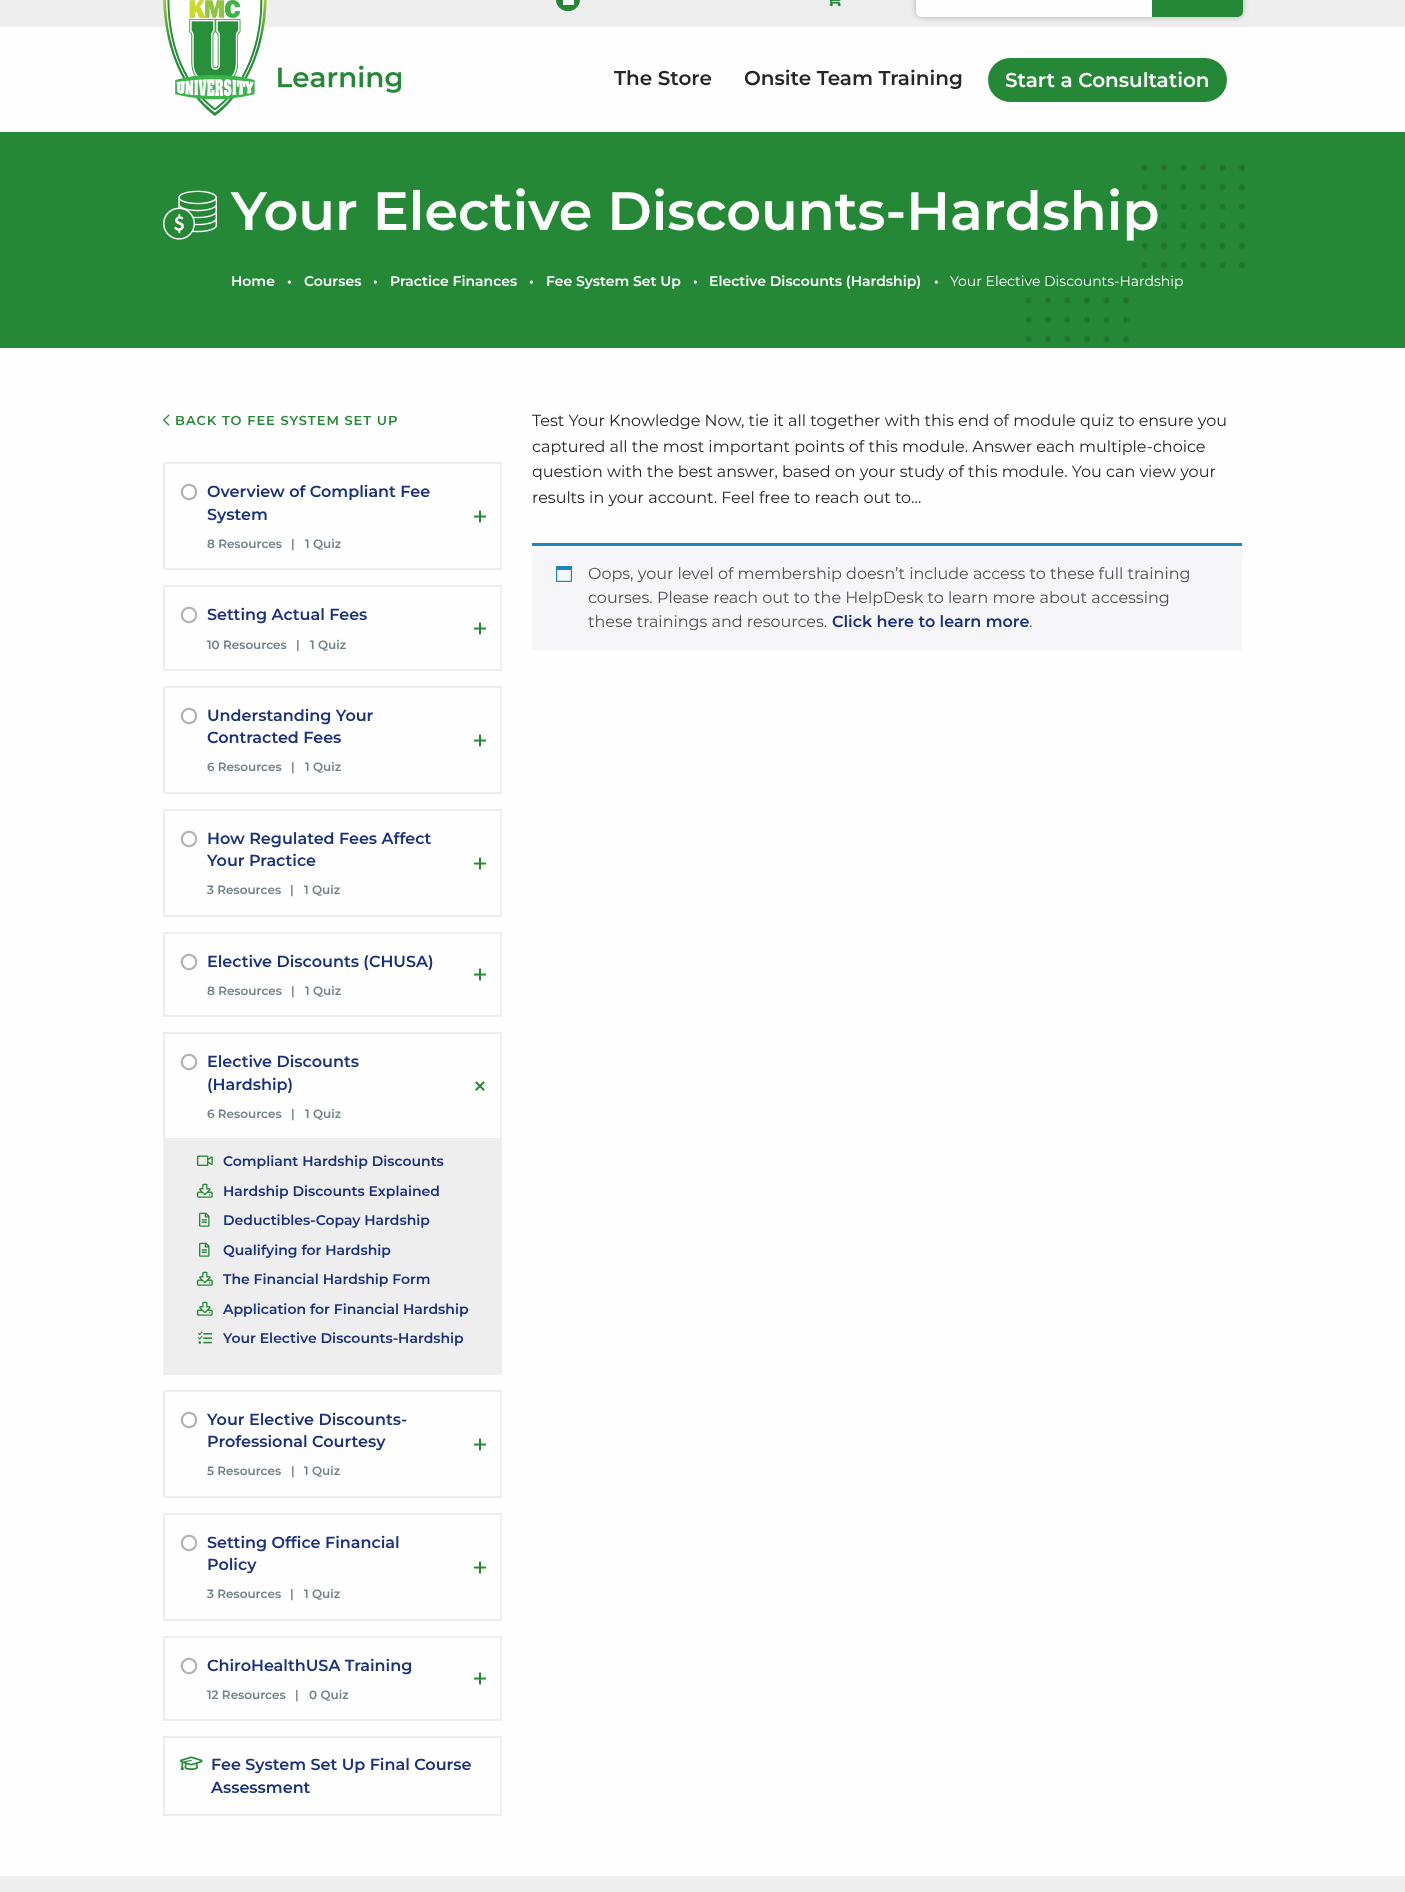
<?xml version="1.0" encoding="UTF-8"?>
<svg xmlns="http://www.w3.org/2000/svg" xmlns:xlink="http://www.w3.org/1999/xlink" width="1405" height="1892">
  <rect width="100%" height="100%" fill="#fefefe" />
  <rect width="1405" height="27" fill="#eeeeee" />
  <image x="163" y="0" width="238" height="116" xlink:href="image1.png" />
  <rect x="556" y="-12" width="24" height="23" rx="12" fill="#258837" />
  <rect x="563" width="11" height="5" fill="#fefefe" />
  <image x="829" y="0" width="12" height="7" xlink:href="image2.png" />
  <rect x="916" y="-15" width="327" height="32" rx="6" fill="#000000" fill-opacity="0.25" filter="blur(3px)" />
  <path d="M 922 -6 h 230 v 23 h -230 c -3.5 0 -6 -2.5 -6 -6 v -11 c 0 -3.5 2.5 -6 6 -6 z" fill="#fefefe" />
  <path d="M 1152 -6 h 85 c 3.5 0 6 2.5 6 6 v 11 c 0 3.5 -2.5 6 -6 6 h -85 z" fill="#258837" />
  <rect x="988" y="58" width="239" height="44" rx="22" fill="#258837" />
  <rect y="132" width="1405" height="216" fill="#258837" />
  <image x="1025" y="164" width="220" height="179" xlink:href="image3.png" />
  <image x="163" y="190" width="54" height="50" xlink:href="image4.png" />
  <image x="163" y="414" width="7" height="12" xlink:href="image5.png" />
  <rect x="164" y="463" width="337" height="106" fill="none" stroke="#eeeeee" stroke-width="2" />
  <image x="180" y="483" width="18" height="18" xlink:href="image6.png" />
  <image x="474" y="510" width="12" height="13" xlink:href="image7.png" />
  <rect x="164" y="586" width="337" height="84" fill="none" stroke="#eeeeee" stroke-width="2" />
  <image x="180" y="606" width="18" height="18" xlink:href="image6.png" />
  <image x="474" y="622" width="12" height="13" xlink:href="image7.png" />
  <rect x="164" y="687" width="337" height="106" fill="none" stroke="#eeeeee" stroke-width="2" />
  <image x="180" y="707" width="18" height="18" xlink:href="image6.png" />
  <image x="474" y="734" width="12" height="13" xlink:href="image7.png" />
  <rect x="164" y="810" width="337" height="106" fill="none" stroke="#eeeeee" stroke-width="2" />
  <image x="180" y="830" width="18" height="18" xlink:href="image6.png" />
  <image x="474" y="857" width="12" height="13" xlink:href="image7.png" />
  <rect x="164" y="933" width="337" height="83" fill="none" stroke="#eeeeee" stroke-width="2" />
  <image x="180" y="953" width="18" height="18" xlink:href="image6.png" />
  <image x="474" y="968" width="12" height="13" xlink:href="image7.png" />
  <rect x="164" y="1033" width="337" height="341" fill="none" stroke="#eeeeee" stroke-width="2" />
  <image x="180" y="1053" width="18" height="18" xlink:href="image6.png" />
  <image x="475" y="1081" width="10" height="10" xlink:href="image8.png" />
  <rect x="165" y="1138" width="335" height="235" fill="#eeeeee" />
  <image x="197" y="1155" width="16" height="11" xlink:href="image9.png" />
  <image x="197" y="1183" width="16" height="15" xlink:href="image10.png" />
  <image x="199" y="1212" width="11" height="15" xlink:href="image11.png" />
  <image x="199" y="1242" width="11" height="15" xlink:href="image11.png" />
  <image x="197" y="1271" width="16" height="15" xlink:href="image10.png" />
  <image x="197" y="1301" width="16" height="15" xlink:href="image10.png" />
  <image x="198" y="1331" width="14" height="13" xlink:href="image12.png" />
  <rect x="164" y="1391" width="337" height="106" fill="none" stroke="#eeeeee" stroke-width="2" />
  <image x="180" y="1411" width="18" height="18" xlink:href="image6.png" />
  <image x="474" y="1438" width="12" height="13" xlink:href="image7.png" />
  <rect x="164" y="1514" width="337" height="106" fill="none" stroke="#eeeeee" stroke-width="2" />
  <image x="180" y="1534" width="18" height="18" xlink:href="image6.png" />
  <image x="474" y="1561" width="12" height="13" xlink:href="image7.png" />
  <rect x="164" y="1637" width="337" height="83" fill="none" stroke="#eeeeee" stroke-width="2" />
  <image x="180" y="1657" width="18" height="18" xlink:href="image6.png" />
  <image x="474" y="1672" width="12" height="13" xlink:href="image7.png" />
  <rect x="164" y="1737" width="337" height="78" fill="none" stroke="#eeeeee" stroke-width="2" />
  <image x="180" y="1756" width="23" height="14" xlink:href="image13.png" />
  <rect x="532" y="546" width="710" height="104" fill="#f6f5f8" />
  <rect x="532" y="543" width="710" height="3" fill="#1e85be" />
  <image x="556" y="566" width="16" height="16" xlink:href="image14.png" />
  <rect y="1876" width="1405" height="16" fill="#eeeeee" />
  <text x="614" y="85" style="font-family: Montserrat; font-size: 20px; font-weight: 600; fill: #262626">The Store</text>
  <text x="744" y="85" style="font-family: Montserrat; font-size: 20px; font-weight: 600; fill: #262626">Onsite Team Training</text>
  <text x="1005" y="87" style="font-family: Montserrat; font-size: 20px; font-weight: 600; fill: #fefefe">Start a Consultation</text>
  <text x="231" y="230" style="font-family: Montserrat; font-size: 54px; font-weight: 600; fill: #fefefe">Your Elective Discounts-Hardship</text>
  <text x="231" y="286" style="font-family: Montserrat; font-size: 14px; font-weight: 600; fill: #fefefe">Home</text>
  <text x="287" y="286" style="font-family: Montserrat; font-size: 14px; font-weight: 600; fill: #fefefe">•</text>
  <text x="304" y="286" style="font-family: Montserrat; font-size: 14px; font-weight: 600; fill: #fefefe">Courses</text>
  <text x="373" y="286" style="font-family: Montserrat; font-size: 14px; font-weight: 600; fill: #fefefe">•</text>
  <text x="390" y="286" style="font-family: Montserrat; font-size: 14px; font-weight: 600; fill: #fefefe">Practice Finances</text>
  <text x="529" y="286" style="font-family: Montserrat; font-size: 14px; font-weight: 600; fill: #fefefe">•</text>
  <text x="546" y="286" style="font-family: Montserrat; font-size: 14px; font-weight: 600; fill: #fefefe">Fee System Set Up</text>
  <text x="693" y="286" style="font-family: Montserrat; font-size: 14px; font-weight: 600; fill: #fefefe">•</text>
  <text x="709" y="286" style="font-family: Montserrat; font-size: 14px; font-weight: 600; fill: #fefefe">Elective Discounts (Hardship)</text>
  <text x="934" y="286" style="font-family: Montserrat; font-size: 14px; font-weight: 600; fill: #fefefe">•</text>
  <text x="950" y="286" style="font-family: Montserrat; font-size: 14px; fill: #fefefe">Your Elective Discounts-Hardship</text>
  <text x="175" y="425" style="font-family: Montserrat; font-size: 13px; font-weight: 600; letter-spacing: 1px; fill: #258837">BACK TO FEE SYSTEM SET UP</text>
  <text x="207" y="497" style="font-family: Montserrat; font-size: 16px; font-weight: 600; fill: #1a3180">Overview of Compliant Fee</text>
  <text x="207" y="520" style="font-family: Montserrat; font-size: 16px; font-weight: 600; fill: #1a3180">System</text>
  <text x="207" y="548" style="font-family: Montserrat; font-size: 12px; font-weight: 600; fill: #728188">8 Resources</text>
  <text x="291" y="548" style="font-family: Montserrat; font-size: 12px; font-weight: 600; fill: #728188">|</text>
  <text x="305" y="548" style="font-family: Montserrat; font-size: 12px; font-weight: 600; fill: #728188">1 Quiz</text>
  <text x="207" y="620" style="font-family: Montserrat; font-size: 16px; font-weight: 600; fill: #1a3180">Setting Actual Fees</text>
  <text x="207" y="649" style="font-family: Montserrat; font-size: 12px; font-weight: 600; fill: #728188">10 Resources</text>
  <text x="296" y="649" style="font-family: Montserrat; font-size: 12px; font-weight: 600; fill: #728188">|</text>
  <text x="310" y="649" style="font-family: Montserrat; font-size: 12px; font-weight: 600; fill: #728188">1 Quiz</text>
  <text x="207" y="721" style="font-family: Montserrat; font-size: 16px; font-weight: 600; fill: #1a3180">Understanding Your</text>
  <text x="207" y="743" style="font-family: Montserrat; font-size: 16px; font-weight: 600; fill: #1a3180">Contracted Fees</text>
  <text x="207" y="771" style="font-family: Montserrat; font-size: 12px; font-weight: 600; fill: #728188">6 Resources</text>
  <text x="291" y="771" style="font-family: Montserrat; font-size: 12px; font-weight: 600; fill: #728188">|</text>
  <text x="305" y="771" style="font-family: Montserrat; font-size: 12px; font-weight: 600; fill: #728188">1 Quiz</text>
  <text x="207" y="844" style="font-family: Montserrat; font-size: 16px; font-weight: 600; fill: #1a3180">How Regulated Fees Affect</text>
  <text x="207" y="866" style="font-family: Montserrat; font-size: 16px; font-weight: 600; fill: #1a3180">Your Practice</text>
  <text x="207" y="894" style="font-family: Montserrat; font-size: 12px; font-weight: 600; fill: #728188">3 Resources</text>
  <text x="290" y="894" style="font-family: Montserrat; font-size: 12px; font-weight: 600; fill: #728188">|</text>
  <text x="304" y="894" style="font-family: Montserrat; font-size: 12px; font-weight: 600; fill: #728188">1 Quiz</text>
  <text x="207" y="967" style="font-family: Montserrat; font-size: 16px; font-weight: 600; fill: #1a3180">Elective Discounts (CHUSA)</text>
  <text x="207" y="995" style="font-family: Montserrat; font-size: 12px; font-weight: 600; fill: #728188">8 Resources</text>
  <text x="291" y="995" style="font-family: Montserrat; font-size: 12px; font-weight: 600; fill: #728188">|</text>
  <text x="305" y="995" style="font-family: Montserrat; font-size: 12px; font-weight: 600; fill: #728188">1 Quiz</text>
  <text x="207" y="1067" style="font-family: Montserrat; font-size: 16px; font-weight: 600; fill: #1a3180">Elective Discounts</text>
  <text x="207" y="1090" style="font-family: Montserrat; font-size: 16px; font-weight: 600; fill: #1a3180">(Hardship)</text>
  <text x="207" y="1118" style="font-family: Montserrat; font-size: 12px; font-weight: 600; fill: #728188">6 Resources</text>
  <text x="291" y="1118" style="font-family: Montserrat; font-size: 12px; font-weight: 600; fill: #728188">|</text>
  <text x="305" y="1118" style="font-family: Montserrat; font-size: 12px; font-weight: 600; fill: #728188">1 Quiz</text>
  <text x="223" y="1166" style="font-family: Montserrat; font-size: 14px; font-weight: 600; fill: #1a3180">Compliant Hardship Discounts</text>
  <text x="223" y="1196" style="font-family: Montserrat; font-size: 14px; font-weight: 600; fill: #1a3180">Hardship Discounts Explained</text>
  <text x="223" y="1225" style="font-family: Montserrat; font-size: 14px; font-weight: 600; fill: #1a3180">Deductibles-Copay Hardship</text>
  <text x="223" y="1255" style="font-family: Montserrat; font-size: 14px; font-weight: 600; fill: #1a3180">Qualifying for Hardship</text>
  <text x="223" y="1284" style="font-family: Montserrat; font-size: 14px; font-weight: 600; fill: #1a3180">The Financial Hardship Form</text>
  <text x="223" y="1314" style="font-family: Montserrat; font-size: 14px; font-weight: 600; fill: #1a3180">Application for Financial Hardship</text>
  <text x="223" y="1343" style="font-family: Montserrat; font-size: 14px; font-weight: 600; fill: #1a3180">Your Elective Discounts-Hardship</text>
  <text x="207" y="1425" style="font-family: Montserrat; font-size: 16px; font-weight: 600; fill: #1a3180">Your Elective Discounts-</text>
  <text x="207" y="1447" style="font-family: Montserrat; font-size: 16px; font-weight: 600; fill: #1a3180">Professional Courtesy</text>
  <text x="207" y="1475" style="font-family: Montserrat; font-size: 12px; font-weight: 600; fill: #728188">5 Resources</text>
  <text x="291" y="1475" style="font-family: Montserrat; font-size: 12px; font-weight: 600; fill: #728188">|</text>
  <text x="304" y="1475" style="font-family: Montserrat; font-size: 12px; font-weight: 600; fill: #728188">1 Quiz</text>
  <text x="207" y="1548" style="font-family: Montserrat; font-size: 16px; font-weight: 600; fill: #1a3180">Setting Office Financial</text>
  <text x="207" y="1570" style="font-family: Montserrat; font-size: 16px; font-weight: 600; fill: #1a3180">Policy</text>
  <text x="207" y="1598" style="font-family: Montserrat; font-size: 12px; font-weight: 600; fill: #728188">3 Resources</text>
  <text x="290" y="1598" style="font-family: Montserrat; font-size: 12px; font-weight: 600; fill: #728188">|</text>
  <text x="304" y="1598" style="font-family: Montserrat; font-size: 12px; font-weight: 600; fill: #728188">1 Quiz</text>
  <text x="207" y="1671" style="font-family: Montserrat; font-size: 16px; font-weight: 600; fill: #1a3180">ChiroHealthUSA Training</text>
  <text x="207" y="1699" style="font-family: Montserrat; font-size: 12px; font-weight: 600; fill: #728188">12 Resources</text>
  <text x="295" y="1699" style="font-family: Montserrat; font-size: 12px; font-weight: 600; fill: #728188">|</text>
  <text x="309" y="1699" style="font-family: Montserrat; font-size: 12px; font-weight: 600; fill: #728188">0 Quiz</text>
  <text x="211" y="1770" style="font-family: Montserrat; font-size: 16px; font-weight: 600; fill: #1a3180">Fee System Set Up Final Course</text>
  <text x="211" y="1793" style="font-family: Montserrat; font-size: 16px; font-weight: 600; fill: #1a3180">Assessment</text>
  <text x="532" y="426" style="font-family: Montserrat; font-size: 16px; fill: #262626">Test Your Knowledge Now, tie it all together with this end of module quiz to ensure you</text>
  <text x="532" y="452" style="font-family: Montserrat; font-size: 16px; fill: #262626">captured all the most important points of this module. Answer each multiple-choice</text>
  <text x="532" y="477" style="font-family: Montserrat; font-size: 16px; fill: #262626">question with the best answer, based on your study of this module. You can view your</text>
  <text x="532" y="503" style="font-family: Montserrat; font-size: 16px; fill: #262626">results in your account. Feel free to reach out to…</text>
  <text x="588" y="579" style="font-family: Montserrat; font-size: 16px; fill: #515151">Oops, your level of membership doesn’t include access to these full training</text>
  <text x="588" y="603" style="font-family: Montserrat; font-size: 16px; fill: #515151">courses. Please reach out to the HelpDesk to learn more about accessing</text>
  <text x="588" y="627" style="font-family: Montserrat; font-size: 16px; fill: #515151">these trainings and resources.</text>
  <text x="832" y="627" style="font-family: Montserrat; font-size: 16px; font-weight: 600; fill: #1a3180">Click here to learn more</text>
  <text x="1029" y="627" style="font-family: Montserrat; font-size: 16px; fill: #515151">.</text>
</svg>
